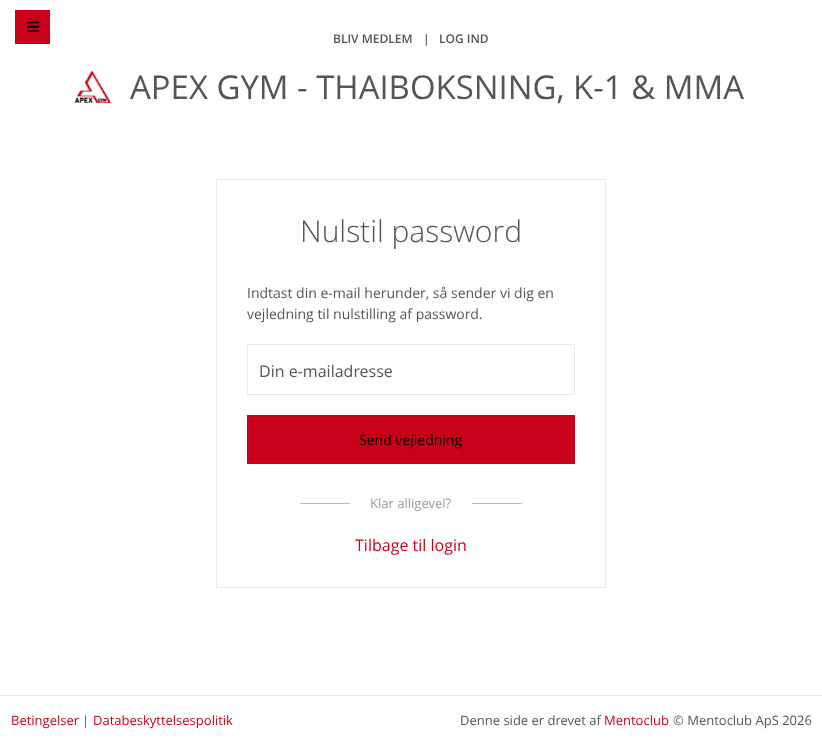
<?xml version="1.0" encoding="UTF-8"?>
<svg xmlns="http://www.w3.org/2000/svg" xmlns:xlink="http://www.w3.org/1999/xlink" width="822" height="745">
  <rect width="100%" height="100%" fill="#ffffff" />
  <rect x="15" y="10" width="35" height="34" fill="#c90019" />
  <image x="27" y="21" width="13" height="11" xlink:href="image1.png" />
  <image x="74" y="70" width="38" height="33" xlink:href="image2.png" />
  <rect x="216.5" y="179.5" width="389" height="408" fill="none" stroke="#e7eaec" />
  <rect x="247.5" y="344.5" width="327" height="50" fill="none" stroke="#e7eaec" />
  <rect x="247" y="415" width="328" height="49" fill="#c90019" />
  <rect x="300" y="503" width="50" height="1" fill="#bbbbbb" />
  <rect x="472" y="503" width="50" height="1" fill="#bbbbbb" />
  <rect y="695" width="822" height="1" fill="#e7eaec" />
  <text x="333" y="43" style="font-family: Open Sans; font-size: 12px; font-weight: 600; fill: #555555">BLIV MEDLEM</text>
  <text x="423" y="43" style="font-family: Open Sans; font-size: 12px; font-weight: 600; fill: #555555">|</text>
  <text x="439" y="43" style="font-family: Open Sans; font-size: 12px; font-weight: 600; fill: #555555">LOG IND</text>
  <text x="130" y="99" style="font-family: Open Sans; font-size: 32.9px; fill: #555555">APEX GYM - THAIBOKSNING, K-1 &amp; MMA</text>
  <text x="300" y="242" style="font-family: Open Sans; font-size: 30px; font-weight: 300; fill: #555555">Nulstil password</text>
  <text x="247" y="298" style="font-family: Open Sans; font-size: 14px; fill: #555555">Indtast din e-mail herunder, så sender vi dig en</text>
  <text x="247" y="319" style="font-family: Open Sans; font-size: 14px; fill: #555555">vejledning til nulstilling af password.</text>
  <text x="259" y="377" style="font-family: Open Sans; font-size: 16px; fill: #555555">Din e-mailadresse</text>
  <text x="359" y="445" style="font-family: Open Sans; font-size: 14px; fill: #000000">Send vejledning</text>
  <text x="370" y="508" style="font-family: Open Sans; font-size: 13px; fill: #999999">Klar alligevel?</text>
  <text x="355" y="551" style="font-family: Open Sans; font-size: 16px; fill: #c90019">Tilbage til login</text>
  <text x="11" y="725" style="font-family: Open Sans; font-size: 13px; fill: #c90019">Betingelser</text>
  <text x="82" y="725" style="font-family: Open Sans; font-size: 13px; fill: #555555">|</text>
  <text x="93" y="725" style="font-family: Open Sans; font-size: 13px; fill: #c90019">Databeskyttelsespolitik</text>
  <text x="460" y="725" style="font-family: Open Sans; font-size: 13px; fill: #555555">Denne side er drevet af</text>
  <text x="604" y="725" style="font-family: Open Sans; font-size: 13px; fill: #c90019">Mentoclub</text>
  <text x="673" y="725" style="font-family: Open Sans; font-size: 13px; fill: #555555">© Mentoclub ApS 2026</text>
</svg>
